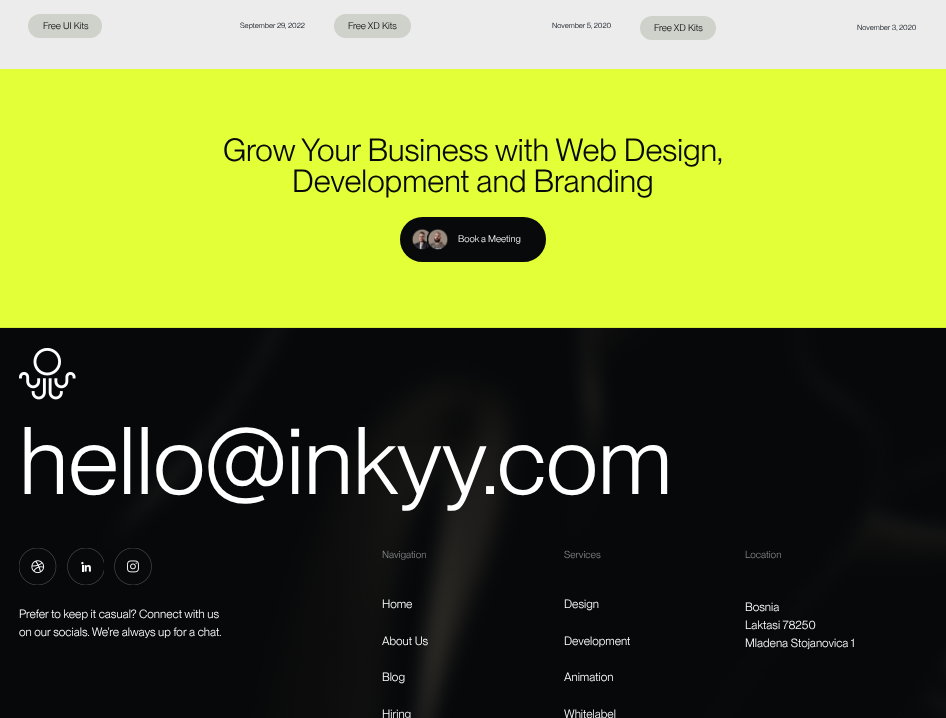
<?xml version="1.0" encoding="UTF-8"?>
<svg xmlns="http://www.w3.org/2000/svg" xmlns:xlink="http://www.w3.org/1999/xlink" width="946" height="718">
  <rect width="100%" height="100%" fill="#ebeceb" />
  <rect x="28" y="14" width="74" height="24" rx="12" fill="#cfd2ca" />
  <rect x="334" y="14" width="77" height="24" rx="12" fill="#cfd2ca" />
  <rect x="640" y="16" width="76" height="24" rx="12" fill="#cfd2ca" />
  <rect y="69" width="946" height="259" fill="#e3ff38" />
  <rect x="401" y="218" width="144" height="43" rx="21.5" fill="#07090b" stroke="#07090b" stroke-width="2" />
  <image x="412" y="229" width="36" height="21" xlink:href="image1.png" />
  <image x="0" y="327" width="946" height="391" xlink:href="image2.png" />
  <image x="19" y="348" width="57" height="52" xlink:href="image3.png" />
  <image x="19" y="548" width="38" height="37" xlink:href="image4.png" />
  <image x="67" y="548" width="37" height="37" xlink:href="image5.png" />
  <image x="114" y="548" width="38" height="37" xlink:href="image6.png" />
  <text x="43" y="29" style="font-family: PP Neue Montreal; font-size: 9.5px; fill: #07090b">Free UI Kits</text>
  <text x="240" y="28" style="font-family: PP Neue Montreal; font-size: 7.5px; fill: #070c16">September 29, 2022</text>
  <text x="348" y="29" style="font-family: PP Neue Montreal; font-size: 9.5px; fill: #07090b">Free XD Kits</text>
  <text x="552" y="28" style="font-family: PP Neue Montreal; font-size: 7.5px; fill: #070c16">November 5, 2020</text>
  <text x="654" y="31" style="font-family: PP Neue Montreal; font-size: 9.5px; fill: #07090b">Free XD Kits</text>
  <text x="857" y="30" style="font-family: PP Neue Montreal; font-size: 7.5px; fill: #070c16">November 3, 2020</text>
  <text x="223" y="161" style="font-family: PP Neue Montreal; font-size: 31.5px; fill: #07090b">Grow Your Business with Web Design,</text>
  <text x="292" y="192" style="font-family: PP Neue Montreal; font-size: 31.5px; fill: #07090b">Development and Branding</text>
  <text x="458" y="242" style="font-family: PP Neue Montreal; font-size: 9.5px; fill: #ffffff">Book a Meeting</text>
  <text x="19" y="494" style="font-family: PP Neue Montreal; font-size: 93.75px; fill: #ffffff">hello@inkyy.com</text>
  <text x="19" y="618" style="font-family: PP Neue Montreal; font-size: 11.8px; fill: #ffffff">Prefer to keep it casual? Connect with us</text>
  <text x="19" y="636" style="font-family: PP Neue Montreal; font-size: 11.8px; fill: #ffffff">on our socials. We’re always up for a chat.</text>
  <text x="382" y="558" style="font-family: PP Neue Montreal; font-size: 10px; fill: #858789">Navigation</text>
  <text x="382" y="608" style="font-family: PP Neue Montreal; font-size: 11.8px; fill: #ffffff">Home</text>
  <text x="382" y="645" style="font-family: PP Neue Montreal; font-size: 11.8px; fill: #ffffff">About Us</text>
  <text x="382" y="681" style="font-family: PP Neue Montreal; font-size: 11.8px; fill: #ffffff">Blog</text>
  <text x="382" y="718" style="font-family: PP Neue Montreal; font-size: 11.8px; fill: #ffffff">Hiring</text>
  <text x="564" y="558" style="font-family: PP Neue Montreal; font-size: 10px; fill: #858789">Services</text>
  <text x="564" y="608" style="font-family: PP Neue Montreal; font-size: 11.8px; fill: #ffffff">Design</text>
  <text x="564" y="645" style="font-family: PP Neue Montreal; font-size: 11.8px; fill: #ffffff">Development</text>
  <text x="564" y="681" style="font-family: PP Neue Montreal; font-size: 11.8px; fill: #ffffff">Animation</text>
  <text x="564" y="718" style="font-family: PP Neue Montreal; font-size: 11.8px; fill: #ffffff">Whitelabel</text>
  <text x="745" y="558" style="font-family: PP Neue Montreal; font-size: 10px; fill: #858789">Location</text>
  <text x="745" y="611" style="font-family: PP Neue Montreal; font-size: 11.8px; fill: #ffffff">Bosnia</text>
  <text x="745" y="629" style="font-family: PP Neue Montreal; font-size: 11.8px; fill: #ffffff">Laktasi 78250</text>
  <text x="745" y="647" style="font-family: PP Neue Montreal; font-size: 11.8px; fill: #ffffff">Mladena Stojanovica 1</text>
</svg>
